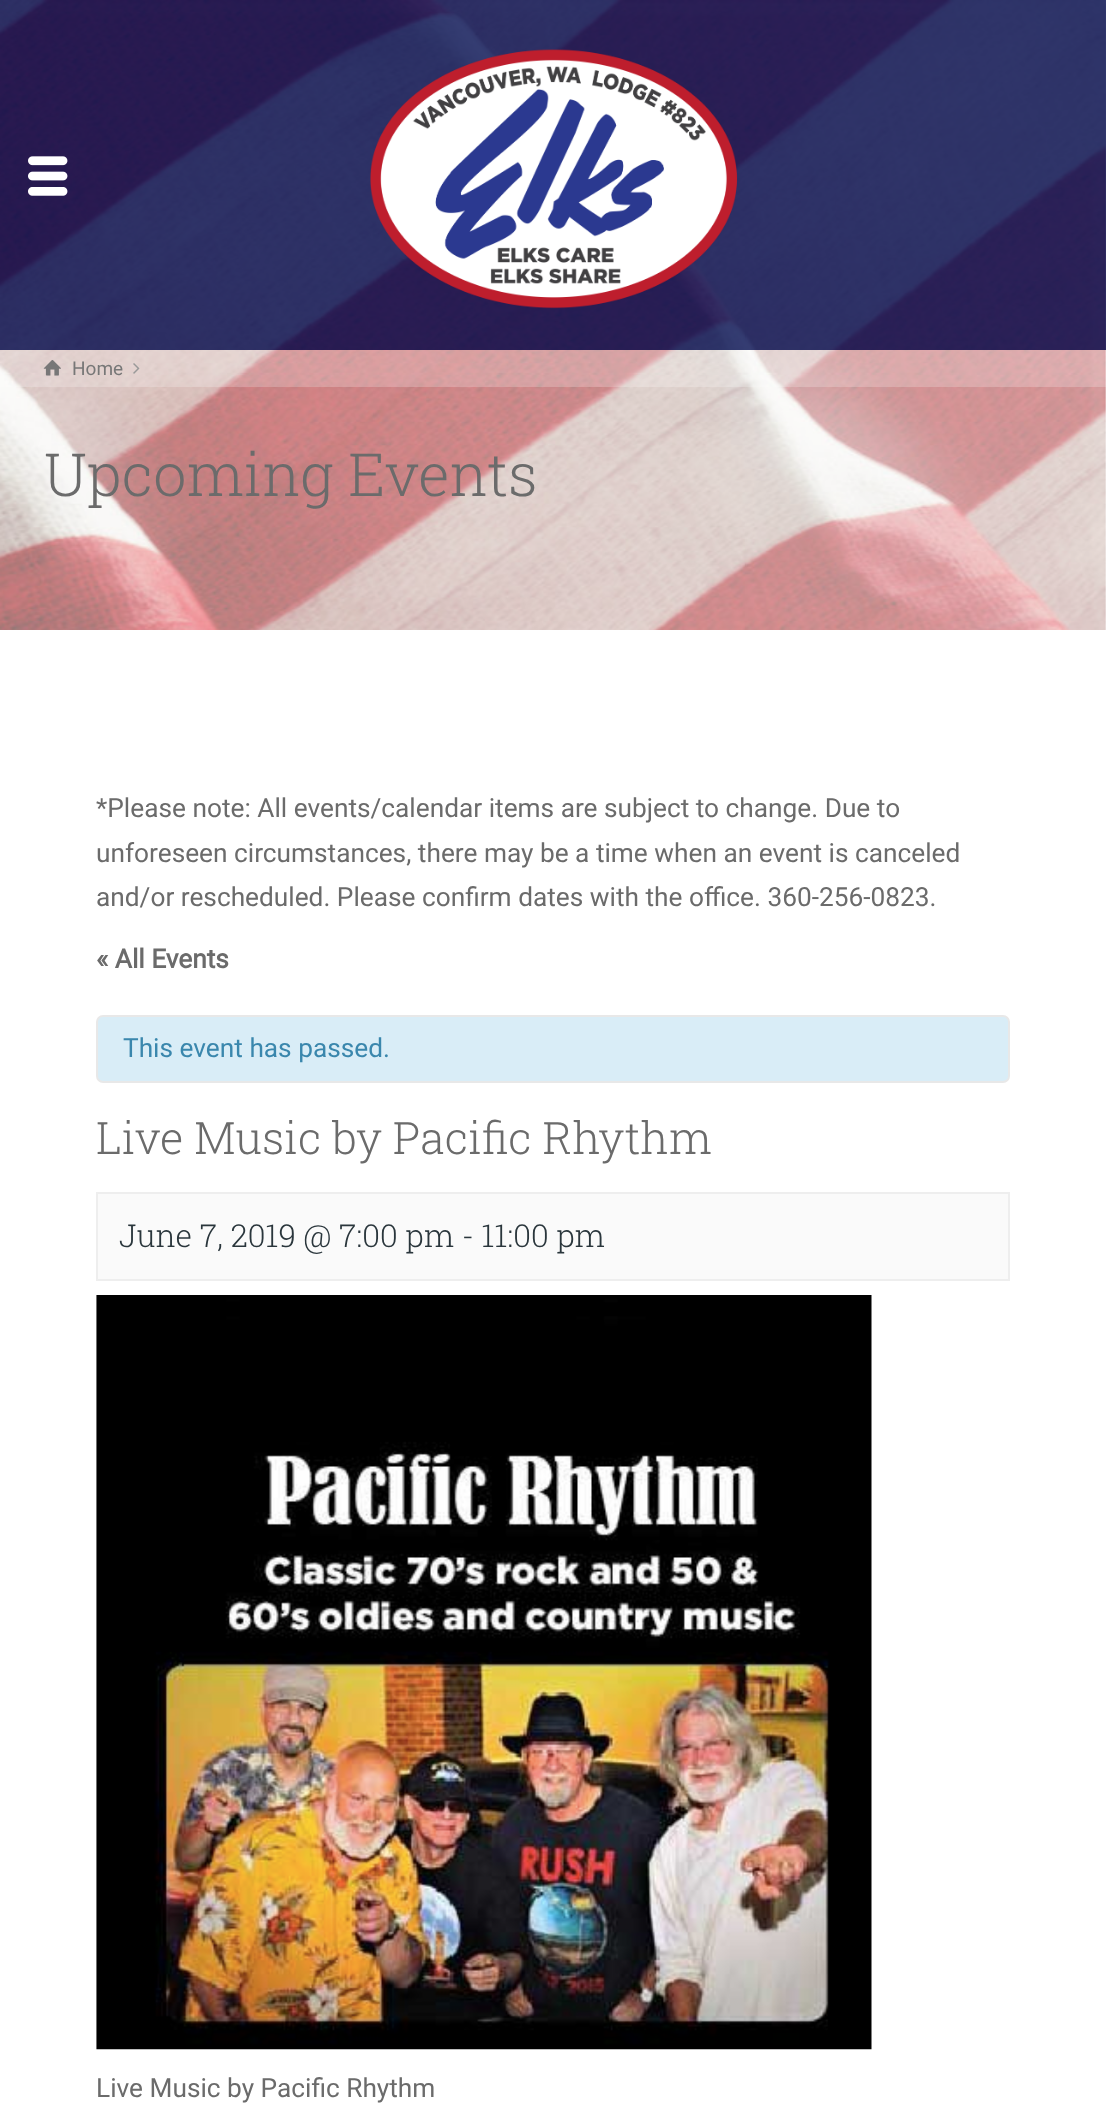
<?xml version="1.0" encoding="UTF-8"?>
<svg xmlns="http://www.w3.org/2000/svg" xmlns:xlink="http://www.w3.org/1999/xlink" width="1106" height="2108">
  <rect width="100%" height="100%" fill="#ffffff" />
  <image x="0" y="0" width="1106" height="630" xlink:href="image1.png" />
  <rect width="1106" height="350" fill="#0a1356" fill-opacity="0.82" />
  <image x="28" y="156" width="40" height="40" xlink:href="image2.png" />
  <image x="370" y="49" width="368" height="260" xlink:href="image3.png" />
  <rect y="350" width="1106" height="280" fill="#ffffff" fill-opacity="0.35" />
  <rect y="350" width="1106" height="37" fill="#ffffff" fill-opacity="0.22" />
  <image x="43" y="360" width="18" height="16" xlink:href="image4.png" />
  <image x="133" y="363" width="7" height="11" xlink:href="image5.png" />
  <rect x="97" y="1016" width="912" height="66" rx="6" fill="#d9edf7" stroke="#e8e8e8" stroke-width="2" />
  <rect x="97" y="1193" width="912" height="87" fill="#fafafa" stroke="#eeeeee" stroke-width="2" />
  <image x="96" y="1295" width="776" height="755" xlink:href="image6.png" />
  <text x="72" y="375" style="font-family: Roboto; font-size: 19px; fill: #777777">Home</text>
  <text x="44" y="496" style="font-family: Roboto Slab; font-size: 59.5px; font-weight: 300; fill: #6b6b6b">Upcoming Events</text>
  <text x="96" y="817" style="font-family: Roboto; font-size: 26.25px; fill: #6b6b6b">*Please note: All events/calendar items are subject to change. Due to</text>
  <text x="96" y="862" style="font-family: Roboto; font-size: 26.25px; fill: #6b6b6b">unforeseen circumstances, there may be a time when an event is canceled</text>
  <text x="96" y="906" style="font-family: Roboto; font-size: 26.25px; fill: #6b6b6b">and/or rescheduled. Please confirm dates with the office. 360-256-0823.</text>
  <text x="96" y="968" style="font-family: Roboto; font-size: 26.25px; font-weight: bold; fill: #6b6b6b">« All Events</text>
  <text x="123" y="1057" style="font-family: Roboto; font-size: 26.25px; fill: #3a87ad">This event has passed.</text>
  <text x="96" y="1154" style="font-family: Roboto Slab; font-size: 44.6px; font-weight: 300; fill: #6b6b6b">Live Music by Pacific Rhythm</text>
  <text x="119" y="1247" style="font-family: Roboto Slab; font-size: 31.5px; font-weight: 300; fill: #2a363c">June 7, 2019 @ 7:00 pm - 11:00 pm</text>
  <text x="96" y="2097" style="font-family: Roboto; font-size: 26.25px; fill: #6b6b6b">Live Music by Pacific Rhythm</text>
</svg>
